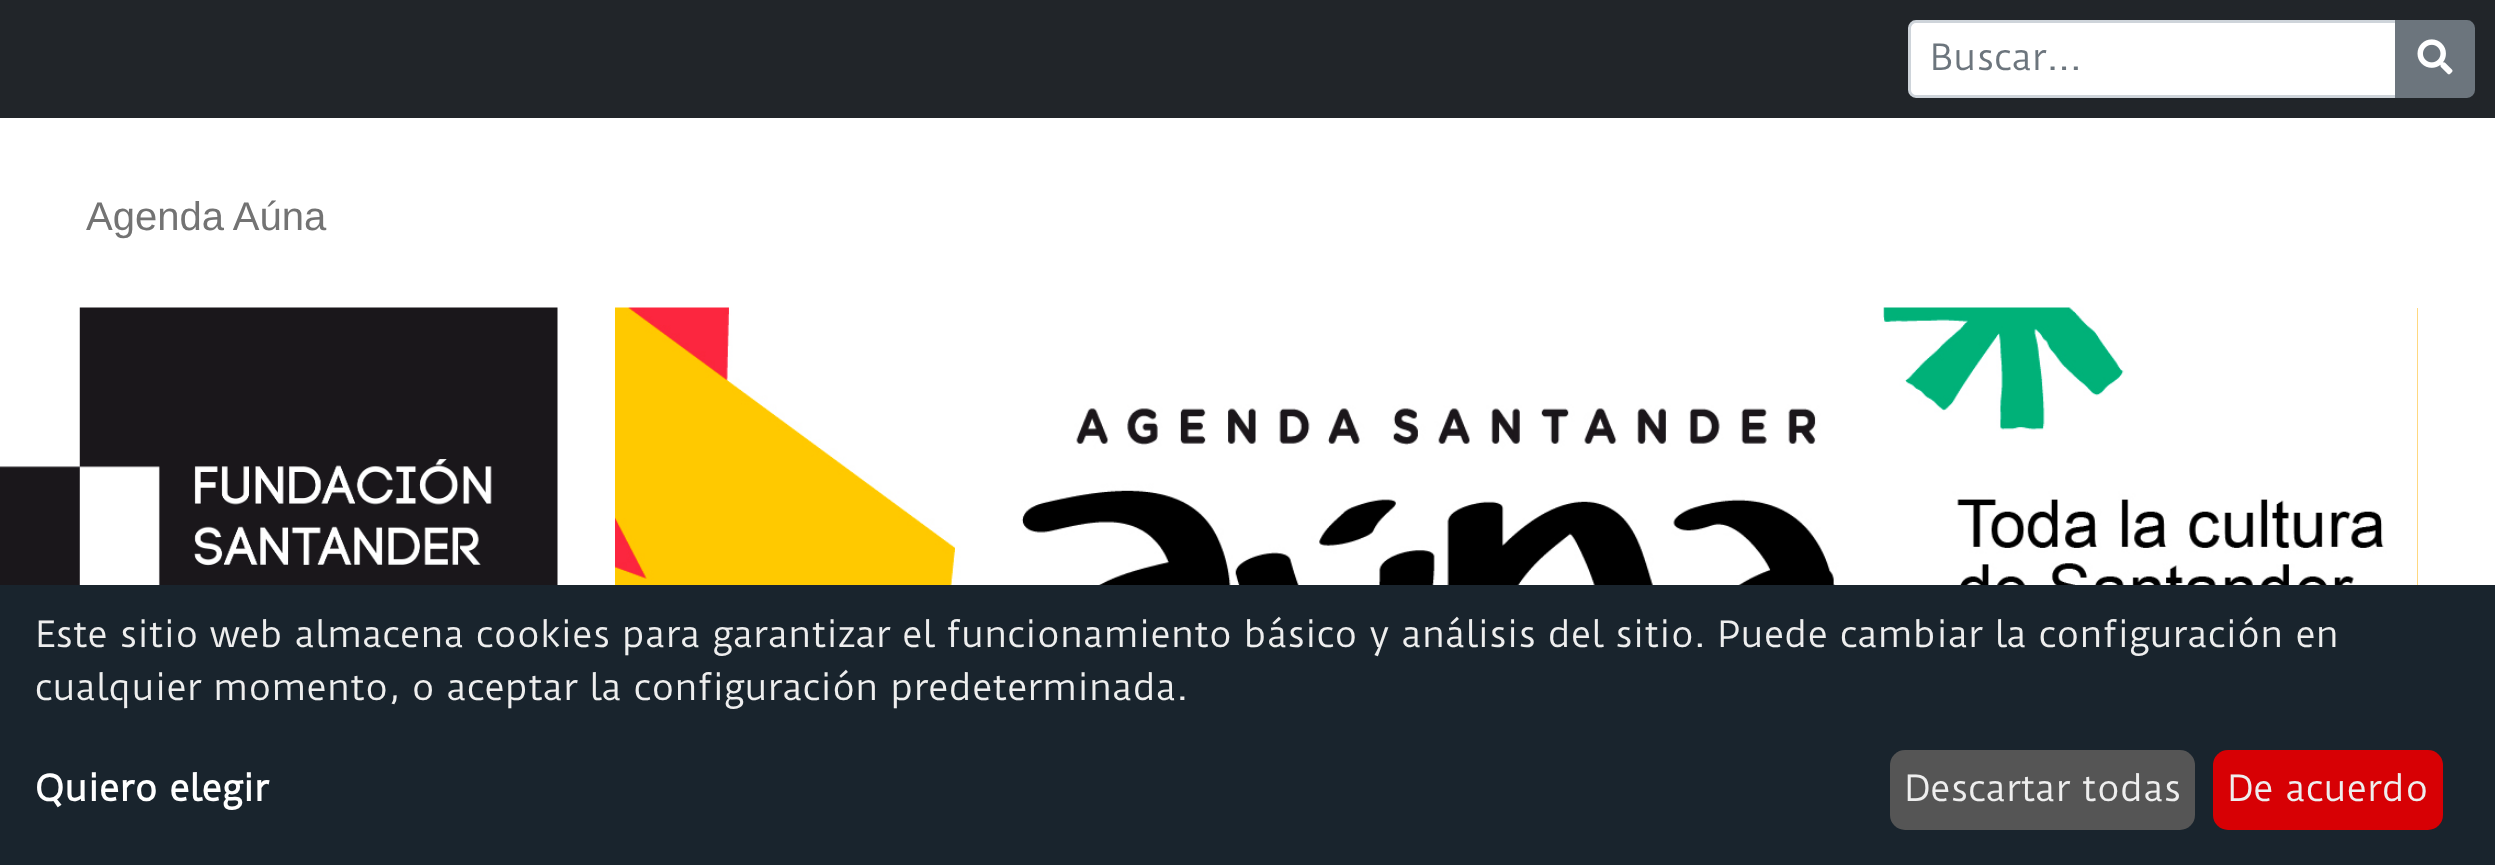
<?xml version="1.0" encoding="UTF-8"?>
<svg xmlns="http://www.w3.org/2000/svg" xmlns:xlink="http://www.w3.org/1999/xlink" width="2495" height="865">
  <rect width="100%" height="100%" fill="#ffffff" />
  <rect width="2495" height="118" fill="#212529" />
  <path d="M 1916 21.5 h 480.5 v 75 h -480.5 c -3.5 0 -6.5 -3 -6.5 -6.5 v -62 c 0 -3.5 3 -6.5 6.5 -6.5 z" fill="#ffffff" stroke="#ced4da" stroke-width="3" />
  <path d="M 2396.5 21.5 h 70.5 c 3.5 0 6.5 3 6.5 6.5 v 62 c 0 3.5 -3 6.5 -6.5 6.5 h -70.5 z" fill="#6c757d" stroke="#6c757d" stroke-width="3" />
  <image x="2417" y="39" width="36" height="36" xlink:href="image1.png" />
  <image x="0" y="307" width="558" height="278" xlink:href="image2.png" />
  <rect x="2417" y="308" width="1" height="277" fill="#ffb100" />
  <image x="615" y="307" width="1803" height="278" xlink:href="image3.png" />
  <rect y="585" width="2495" height="280" fill="#19242d" />
  <rect x="1890" y="750" width="305" height="80" rx="15" fill="#555555" />
  <rect x="2213" y="750" width="230" height="80" rx="15" fill="#d70004" />
  <text x="1930" y="70" style="font-family: Duru Sans; font-size: 35px; fill: #6c757d">Buscar...</text>
  <text x="86" y="230" style="font-family: Liberation Sans; font-size: 40px; fill: #737373">Agenda Aúna</text>
  <text x="35" y="647" style="font-family: Duru Sans; font-size: 35px; fill: #eeeeee">Este sitio web almacena cookies para garantizar el funcionamiento básico y análisis del sitio. Puede cambiar la configuración en</text>
  <text x="35" y="700" style="font-family: Duru Sans; font-size: 35px; fill: #eeeeee">cualquier momento, o aceptar la configuración predeterminada.</text>
  <text x="35" y="801" style="font-family: Duru Sans; font-size: 35px; font-weight: bold; fill: #ffffff">Quiero elegir</text>
  <text x="1904" y="801" style="font-family: Duru Sans; font-size: 35px; fill: #eeeeee">Descartar todas</text>
  <text x="2227" y="801" style="font-family: Duru Sans; font-size: 35px; fill: #eeeeee">De acuerdo</text>
</svg>
